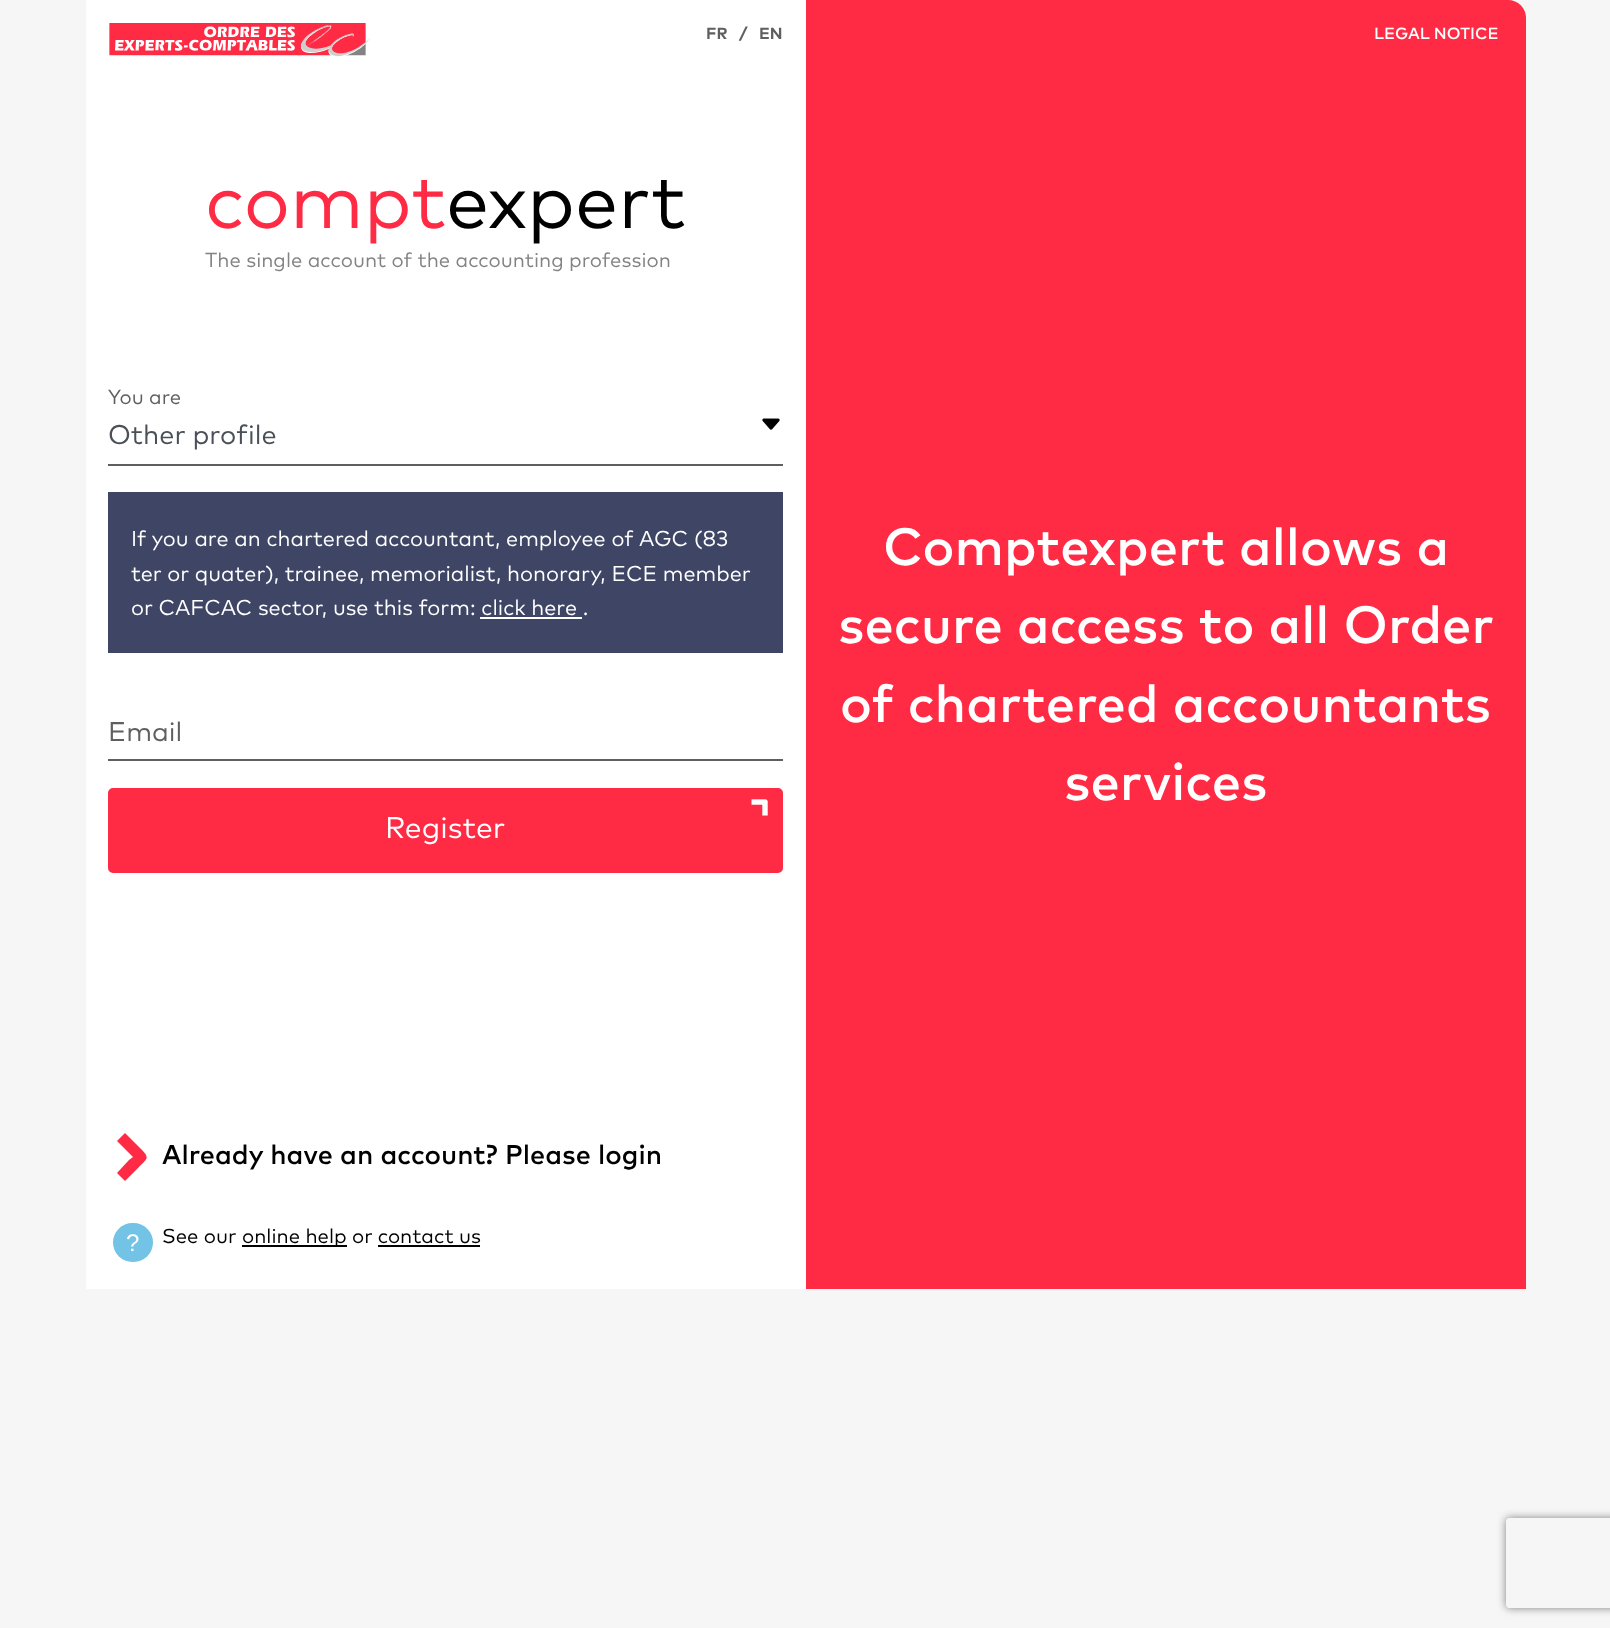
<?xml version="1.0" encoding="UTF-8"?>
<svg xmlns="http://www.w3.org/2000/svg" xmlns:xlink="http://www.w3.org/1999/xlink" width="1610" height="1628">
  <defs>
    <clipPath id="clip1"><path d="M 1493 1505 h 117 v 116 h -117 z m 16 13 h 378 c 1.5 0 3 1.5 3 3 v 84 c 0 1.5 -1.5 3 -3 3 h -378 c -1.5 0 -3 -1.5 -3 -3 v -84 c 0 -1.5 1.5 -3 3 -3 z" clip-rule="evenodd" /></clipPath>
  </defs>
  <rect width="100%" height="100%" fill="#f6f6f6" />
  <rect x="86" width="720" height="1289" fill="#ffffff" />
  <image x="109" y="23" width="261" height="34" xlink:href="image1.png" />
  <image x="762" y="418" width="18" height="12" xlink:href="image2.png" />
  <rect x="108" y="464" width="675" height="2" fill="#605f5f" />
  <rect x="108" y="492" width="675" height="161" fill="#3f4565" />
  <rect x="480" y="617" width="102" height="2" fill="#ffffff" />
  <rect x="108" y="759" width="675" height="2" fill="#605f5f" />
  <rect x="109" y="789" width="673" height="83" rx="4" fill="#ff2b44" stroke="#ff2b44" stroke-width="2" />
  <image x="751" y="799" width="17" height="17" xlink:href="image3.png" />
  <g clip-path="url(#clip1)">
    <rect x="1506" y="1518" width="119" height="90" rx="3" fill="#808080" filter="blur(4px)" />
  </g>
  <path d="M 129 1160 l -12 13 l 8 8 l 14 -14 c 8 -8 11 -9 3 -17 l -17 -17 l -8 8 l 16 16 z" fill="#ff2b44" />
  <rect x="113" y="1223" width="40" height="39" rx="19.5" fill="#73c3e6" />
  <rect x="242" y="1245" width="105" height="2" fill="#000000" />
  <rect x="378" y="1245" width="102" height="2" fill="#000000" />
  <path d="M 806 0 h 702 c 10 0 18 8 18 18 v 1271 h -720 z" fill="#ff2b44" />
  <text x="706" y="39" style="font-family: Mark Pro; font-size: 16.25px; font-weight: bold; fill: #605f5f">FR</text>
  <text x="739" y="39" style="font-family: Mark Pro; font-size: 16.25px; font-weight: bold; fill: #605f5f">/</text>
  <text x="759" y="39" style="font-family: Mark Pro; font-size: 16.25px; font-weight: bold; fill: #605f5f">EN</text>
  <text x="205" y="228" style="font-family: Mark Pro; font-size: 77px; fill: #ff2b44">compt</text>
  <text x="446" y="228" style="font-family: Mark Pro; font-size: 77px; fill: #000000">expert</text>
  <text x="205" y="267" style="font-family: Mark Pro; font-size: 20.25px; fill: #838383">The single account of the accounting profession</text>
  <text x="108" y="404" style="font-family: Mark Pro; font-size: 20.25px; fill: #605f5f">You are</text>
  <text x="108" y="444" style="font-family: Mark Pro; font-size: 27px; fill: #495057">Other profile</text>
  <text x="131" y="546" style="font-family: Mark Pro; font-size: 21.6px; fill: #ffffff">If you are an chartered accountant, employee of AGC (83</text>
  <text x="131" y="581" style="font-family: Mark Pro; font-size: 21.6px; fill: #ffffff">ter or quater), trainee, memorialist, honorary, ECE member</text>
  <text x="131" y="615" style="font-family: Mark Pro; font-size: 21.6px; fill: #ffffff">or CAFCAC sector, use this form: click here .</text>
  <text x="108" y="741" style="font-family: Mark Pro; font-size: 27px; fill: #605f5f">Email</text>
  <text x="385" y="838" style="font-family: Mark Pro; font-size: 30px; fill: #ffffff">Register</text>
  <text x="162" y="1164" style="font-family: Mark Pro; font-size: 27px; font-weight: 500; fill: #000000">Already have an account? Please login</text>
  <text x="126" y="1251" style="font-family: Liberation Sans; font-size: 24px; fill: #ffffff">?</text>
  <text x="162" y="1243" style="font-family: Mark Pro; font-size: 20.25px; fill: #000000">See our</text>
  <text x="242" y="1243" style="font-family: Mark Pro; font-size: 20.25px; fill: #000000">online help or contact us</text>
  <text x="1374" y="39" style="font-family: Mark Pro; font-size: 16.25px; font-weight: 500; fill: #ffffff">LEGAL NOTICE</text>
  <text x="883" y="565" style="font-family: Mark Pro; font-size: 52.4px; font-weight: 500; fill: #ffffff">Comptexpert allows a</text>
  <text x="838" y="643" style="font-family: Mark Pro; font-size: 52.4px; font-weight: 500; fill: #ffffff">secure access to all Order</text>
  <text x="840" y="722" style="font-family: Mark Pro; font-size: 52.4px; font-weight: 500; fill: #ffffff">of chartered accountants</text>
  <text x="1064" y="800" style="font-family: Mark Pro; font-size: 52.4px; font-weight: 500; fill: #ffffff">services</text>
</svg>
